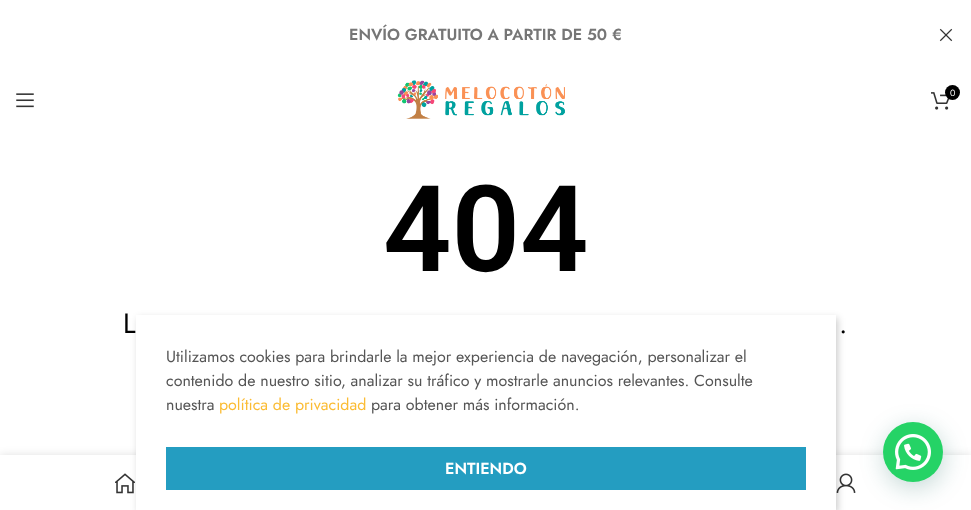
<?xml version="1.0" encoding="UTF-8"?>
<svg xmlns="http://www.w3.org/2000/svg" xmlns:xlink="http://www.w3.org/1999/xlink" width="971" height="510">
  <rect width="100%" height="100%" fill="#ffffff" />
  <image x="939" y="28" width="14" height="14" xlink:href="image1.png" />
  <image x="16" y="93" width="18" height="15" xlink:href="image2.png" />
  <image x="397" y="80" width="168" height="39" xlink:href="image3.png" />
  <image x="931" y="92" width="19" height="18" xlink:href="image4.png" />
  <circle cx="952.5" cy="92.5" r="7.5" fill="#000000" />
  <rect y="455" width="971" height="55" fill="#000000" fill-opacity="0.12" filter="blur(4.5px)" />
  <rect y="455" width="971" height="55" fill="#ffffff" />
  <image x="115" y="473" width="20" height="21" xlink:href="image6.png" />
  <image x="836" y="473" width="20" height="20" xlink:href="image7.png" />
  <rect x="138" y="318" width="700" height="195" fill="#000000" fill-opacity="0.2" filter="blur(3.5px)" />
  <rect x="136" y="315" width="700" height="195" fill="#ffffff" />
  <rect x="166" y="447" width="640" height="43" fill="#249dc1" />
  <rect x="884" y="428" width="60" height="60" rx="30" fill="#075e54" fill-opacity="0.24" filter="blur(12px)" />
  <circle cx="913" cy="452" r="30" fill="#25d366" />
  <image x="895" y="434" width="36" height="36" xlink:href="image5.png" />
  <text x="349" y="40" style="font-family: Jost; font-size: 16px; font-weight: 600; fill: #767676">ENVÍO GRATUITO A PARTIR DE 50 €</text>
  <text x="950" y="96" style="font-family: Jost; font-size: 9px; fill: #ffffff">0</text>
  <text x="383" y="271" style="font-family: Roboto; font-size: 120px; font-weight: 600; fill: #000000">404</text>
  <text x="123" y="333" style="font-family: Jost; font-size: 28px; fill: #000000">L</text>
  <text x="839" y="333" style="font-family: Jost; font-size: 28px; fill: #000000">.</text>
  <text x="166" y="362" style="font-family: Jost; font-size: 16px; fill: #555555">Utilizamos cookies para brindarle la mejor experiencia de navegación, personalizar el</text>
  <text x="166" y="386" style="font-family: Jost; font-size: 16px; fill: #555555">contenido de nuestro sitio, analizar su tráfico y mostrarle anuncios relevantes. Consulte</text>
  <text x="166" y="410" style="font-family: Jost; font-size: 16px; fill: #555555">nuestra</text>
  <text x="219" y="410" style="font-family: Jost; font-size: 16px; fill: #fbbc34">política de privacidad</text>
  <text x="371" y="410" style="font-family: Jost; font-size: 16px; fill: #555555">para obtener más información.</text>
  <text x="445" y="474" style="font-family: Jost; font-size: 16px; font-weight: 600; fill: #ffffff">ENTIENDO</text>
</svg>
